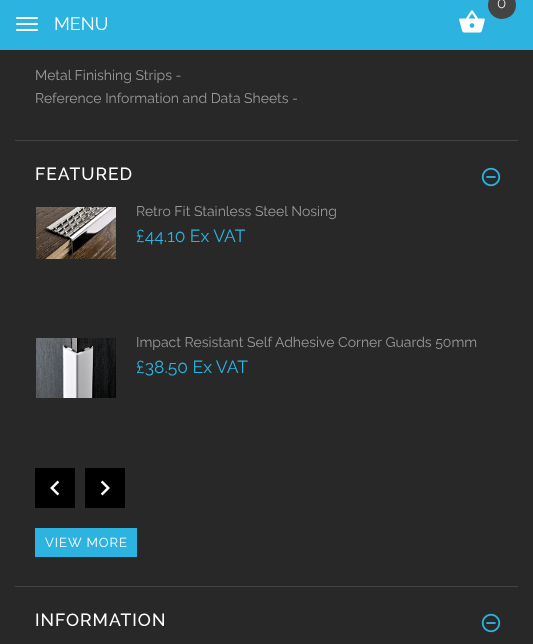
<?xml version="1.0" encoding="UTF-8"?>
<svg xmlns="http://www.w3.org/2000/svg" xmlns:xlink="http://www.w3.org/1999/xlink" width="533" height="644">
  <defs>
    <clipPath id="clip1"><rect x="35" y="206" width="463" height="262" /></clipPath>
  </defs>
  <rect width="100%" height="100%" fill="#282828" />
  <rect width="533" height="50" fill="#2db3e0" />
  <circle cx="502" cy="5" r="14" fill="#444444" />
  <image x="459" y="10" width="26" height="23" xlink:href="image1.png" />
  <rect x="16" y="17" width="22" height="2" rx="1" fill="#ffffff" />
  <rect x="16" y="23" width="22" height="2" rx="1" fill="#ffffff" />
  <rect x="16" y="29" width="22" height="2" rx="1" fill="#ffffff" />
  <rect x="15" y="140" width="503" height="1" fill="#444444" />
  <rect x="15" y="586" width="503" height="1" fill="#444444" />
  <image x="481" y="167" width="20" height="20" xlink:href="image2.png" />
  <image x="36" y="207" width="80" height="52" xlink:href="image3.png" />
  <image x="36" y="338" width="80" height="60" xlink:href="image4.png" />
  <rect x="35" y="468" width="40" height="40" fill="#000000" />
  <image x="50" y="480" width="10" height="16" xlink:href="image5.png" />
  <rect x="85" y="468" width="40" height="40" fill="#000000" />
  <image x="100" y="480" width="10" height="16" xlink:href="image6.png" />
  <rect x="35" y="528" width="102" height="29" fill="#2db3e0" />
  <image x="481" y="613" width="20" height="20" xlink:href="image2.png" />
  <text x="497" y="8" style="font-family: Raleway; font-size: 15px; font-weight: 300; fill: #ffffff">0</text>
  <text x="54" y="30" style="font-family: Raleway; font-size: 18px; fill: #ffffff">MENU</text>
  <text x="35" y="80" style="font-family: Raleway; font-size: 14px; fill: #999999">Metal Finishing Strips -</text>
  <text x="35" y="103" style="font-family: Raleway; font-size: 14px; fill: #999999">Reference Information and Data Sheets -</text>
  <text x="35" y="180" style="font-family: Raleway; font-size: 17.5px; font-weight: 500; letter-spacing: 1px; fill: #ffffff">FEATURED</text>
  <g clip-path="url(#clip1)">
    <text x="136" y="216" style="font-family: Raleway; font-size: 14px; fill: #999999">Retro Fit Stainless Steel Nosing</text>
  </g>
  <text x="136" y="242" style="font-family: Raleway; font-size: 17.5px; fill: #2db3e0">£44.10 Ex VAT</text>
  <text x="136" y="347" style="font-family: Raleway; font-size: 14px; fill: #999999">Impact Resistant Self Adhesive Corner Guards 50mm</text>
  <text x="136" y="373" style="font-family: Raleway; font-size: 17.5px; fill: #2db3e0">£38.50 Ex VAT</text>
  <text x="45" y="547" style="font-family: Raleway; font-size: 13px; letter-spacing: 1px; fill: #ffffff">VIEW MORE</text>
  <text x="35" y="626" style="font-family: Raleway; font-size: 17.5px; font-weight: 500; letter-spacing: 1px; fill: #ffffff">INFORMATION</text>
</svg>
